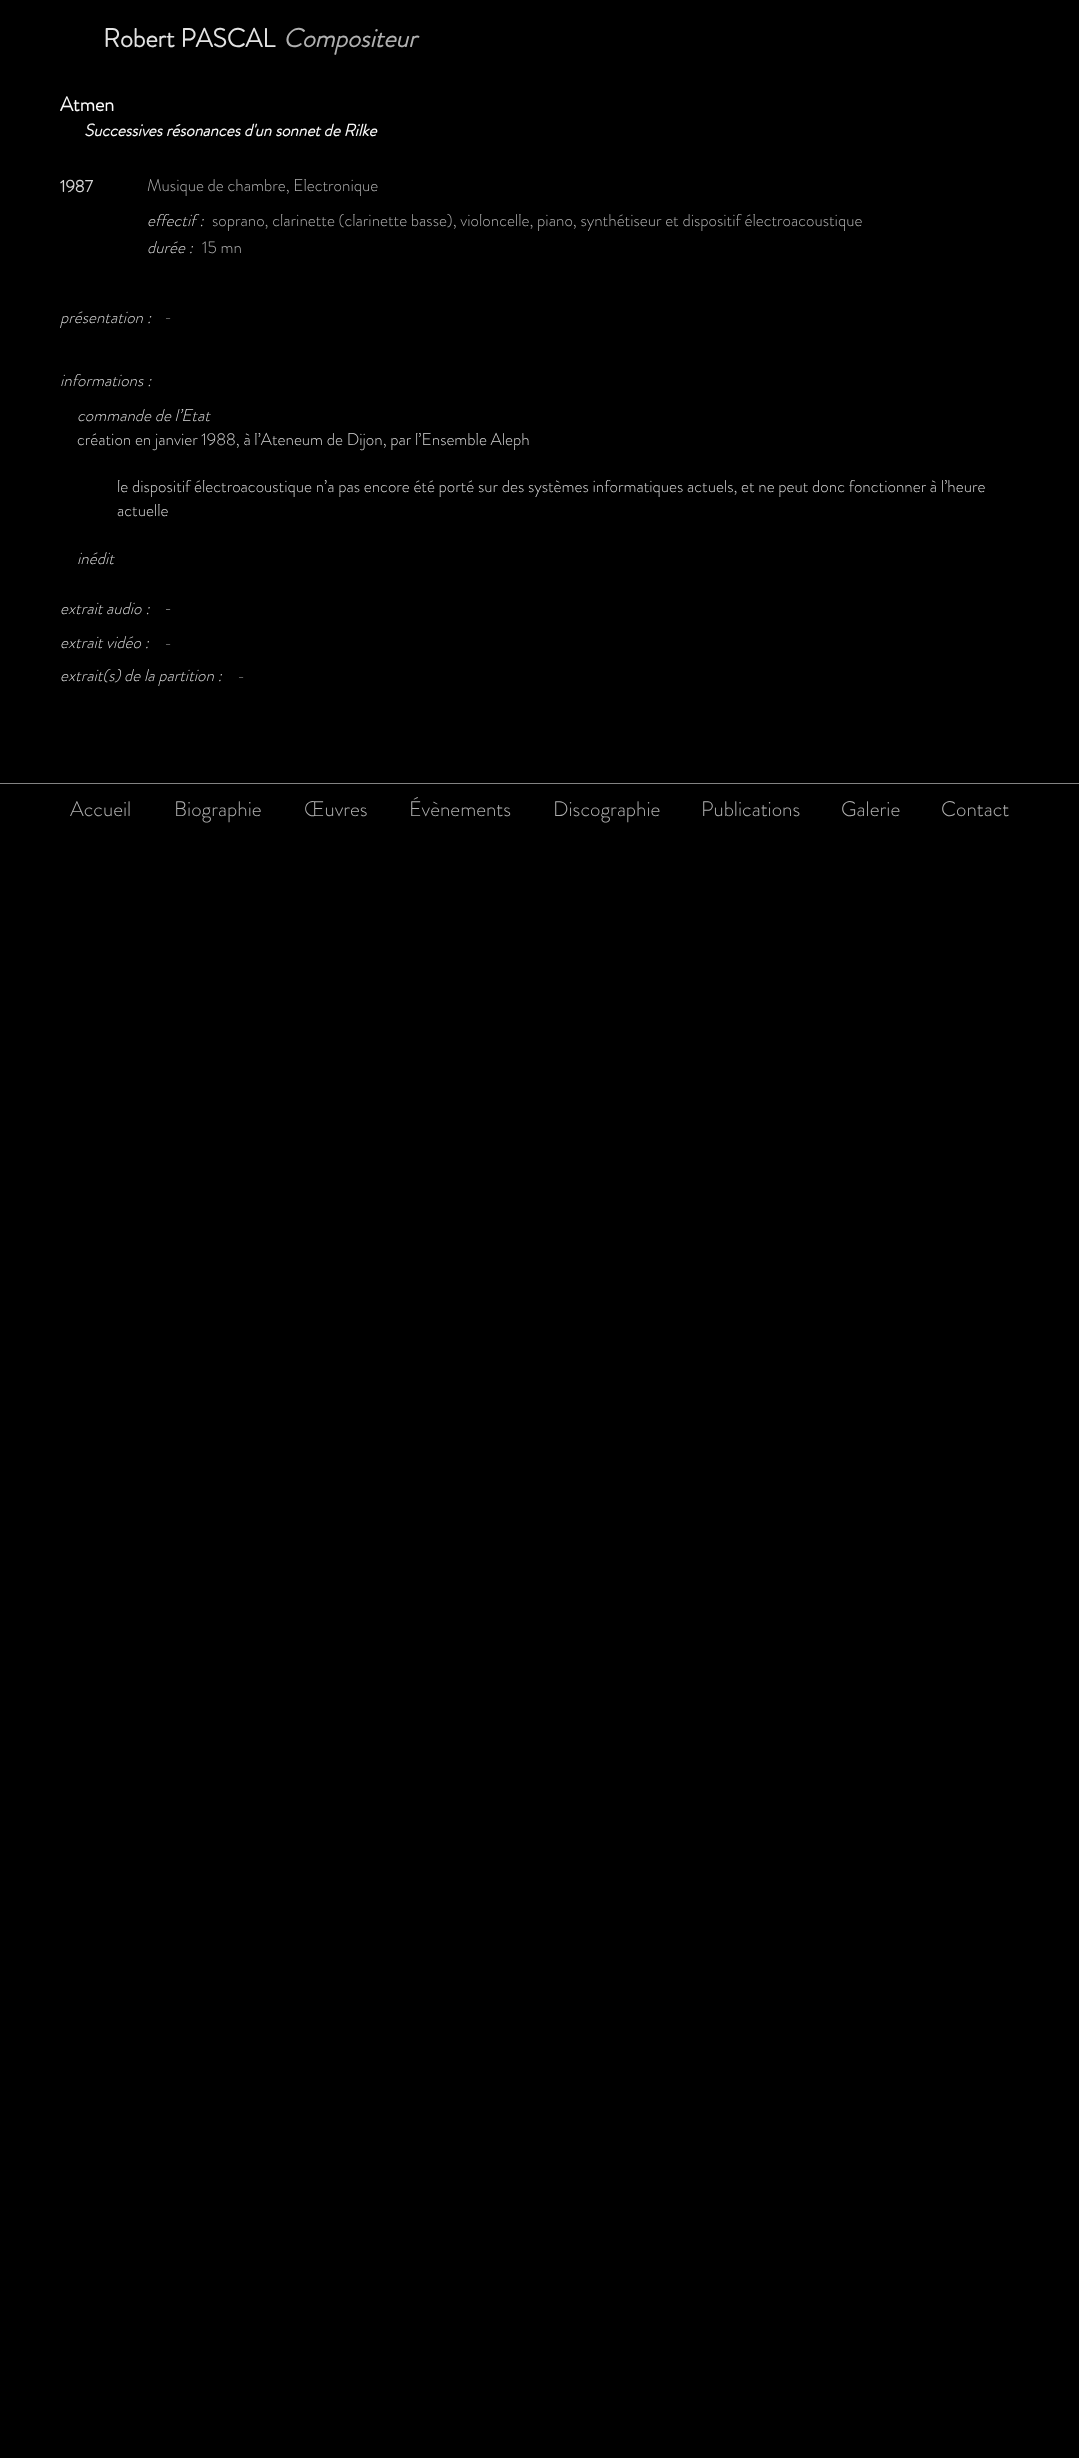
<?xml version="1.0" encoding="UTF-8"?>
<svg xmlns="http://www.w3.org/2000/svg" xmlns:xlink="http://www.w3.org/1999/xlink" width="1079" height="2458">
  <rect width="100%" height="100%" fill="#000000" />
  <rect y="783" width="1079" height="1" fill="#838383" />
  <text x="103" y="47" style="font-family: 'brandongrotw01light'; font-size: 26px; font-weight: bold; fill: #e3e3e3">Robert PASCAL</text>
  <text x="283" y="47" style="font-family: 'brandongrotw01light'; font-size: 26px; font-weight: bold; font-style: italic; fill: #b0b0b0">Compositeur</text>
  <text x="60" y="111" style="font-family: 'brandongrotw01light'; font-size: 20px; font-weight: bold; fill: #fafafa">Atmen</text>
  <text x="84" y="136" style="font-family: 'brandongrotw01light'; font-size: 17px; font-weight: bold; font-style: italic; fill: #fafafa">Successives résonances d'un sonnet de Rilke</text>
  <text x="60" y="192" style="font-family: 'brandongrotw01light'; font-size: 17px; font-weight: bold; fill: #d5d5d5">1987</text>
  <text x="147" y="191" style="font-family: 'brandongrotw01light'; font-size: 17px; font-weight: 300; fill: #b0b0b0">Musique de chambre, Electronique</text>
  <text x="147" y="226" style="font-family: 'brandongrotw01light'; font-size: 17px; font-weight: 300; font-style: italic; fill: #d5d5d5">effectif :</text>
  <text x="212" y="226" style="font-family: 'brandongrotw01light'; font-size: 17px; font-weight: 300; fill: #b0b0b0">soprano, clarinette (clarinette basse), violoncelle, piano, synthétiseur et dispositif électroacoustique</text>
  <text x="147" y="253" style="font-family: 'brandongrotw01light'; font-size: 17px; font-weight: 300; font-style: italic; fill: #d5d5d5">durée :</text>
  <text x="202" y="253" style="font-family: 'brandongrotw01light'; font-size: 17px; font-weight: 300; fill: #b0b0b0">15 mn</text>
  <text x="60" y="323" style="font-family: 'brandongrotw01light'; font-size: 17px; font-weight: 300; font-style: italic; fill: #d5d5d5">présentation :</text>
  <text x="164" y="323" style="font-family: 'brandongrotw01light'; font-size: 17px; font-weight: 300; fill: #b0b0b0">-</text>
  <text x="60" y="386" style="font-family: 'brandongrotw01light'; font-size: 17px; font-weight: 300; font-style: italic; fill: #d5d5d5">informations :</text>
  <text x="77" y="421" style="font-family: 'brandongrotw01light'; font-size: 17px; font-weight: 300; font-style: italic; fill: #d5d5d5">commande de l’Etat</text>
  <text x="77" y="445" style="font-family: 'brandongrotw01light'; font-size: 17px; font-weight: 300; fill: #d5d5d5">création en janvier 1988, à l’Ateneum de Dijon, par l’Ensemble Aleph</text>
  <text x="117" y="492" style="font-family: 'brandongrotw01light'; font-size: 17px; font-weight: 300; fill: #d5d5d5">le dispositif électroacoustique n’a pas encore été porté sur des systèmes informatiques actuels, et ne peut donc fonctionner à l’heure</text>
  <text x="117" y="516" style="font-family: 'brandongrotw01light'; font-size: 17px; font-weight: 300; fill: #d5d5d5">actuelle</text>
  <text x="77" y="564" style="font-family: 'brandongrotw01light'; font-size: 17px; font-weight: 300; font-style: italic; fill: #d5d5d5">inédit</text>
  <text x="60" y="614" style="font-family: 'brandongrotw01light'; font-size: 17px; font-weight: 300; font-style: italic; fill: #d5d5d5">extrait audio :</text>
  <text x="164" y="614" style="font-family: 'brandongrotw01light'; font-size: 17px; font-weight: 300; fill: #dbdbdb">-</text>
  <text x="60" y="648" style="font-family: 'brandongrotw01light'; font-size: 17px; font-weight: 300; font-style: italic; fill: #d5d5d5">extrait vidéo :</text>
  <text x="164" y="649" style="font-family: 'brandongrotw01light'; font-size: 17px; font-weight: 300; fill: #b0b0b0">-</text>
  <text x="60" y="681" style="font-family: 'brandongrotw01light'; font-size: 17px; font-weight: 300; font-style: italic; fill: #d5d5d5">extrait(s) de la partition :</text>
  <text x="237" y="682" style="font-family: 'brandongrotw01light'; font-size: 17px; font-weight: 300; fill: #b0b0b0">-</text>
  <text x="70" y="816" style="font-family: 'brandongrotw01light'; font-size: 21px; font-weight: 300; fill: #b0b0b0">Accueil</text>
  <text x="174" y="816" style="font-family: 'brandongrotw01light'; font-size: 21px; font-weight: 300; fill: #b0b0b0">Biographie</text>
  <text x="304" y="816" style="font-family: 'brandongrotw01light'; font-size: 21px; font-weight: 300; fill: #b0b0b0">Œuvres</text>
  <text x="409" y="816" style="font-family: 'brandongrotw01light'; font-size: 21px; font-weight: 300; fill: #b0b0b0">Évènements</text>
  <text x="553" y="816" style="font-family: 'brandongrotw01light'; font-size: 21px; font-weight: 300; fill: #b0b0b0">Discographie</text>
  <text x="701" y="816" style="font-family: 'brandongrotw01light'; font-size: 21px; font-weight: 300; fill: #b0b0b0">Publications</text>
  <text x="841" y="816" style="font-family: 'brandongrotw01light'; font-size: 21px; font-weight: 300; fill: #b0b0b0">Galerie</text>
  <text x="941" y="816" style="font-family: 'brandongrotw01light'; font-size: 21px; font-weight: 300; fill: #b0b0b0">Contact</text>
</svg>
